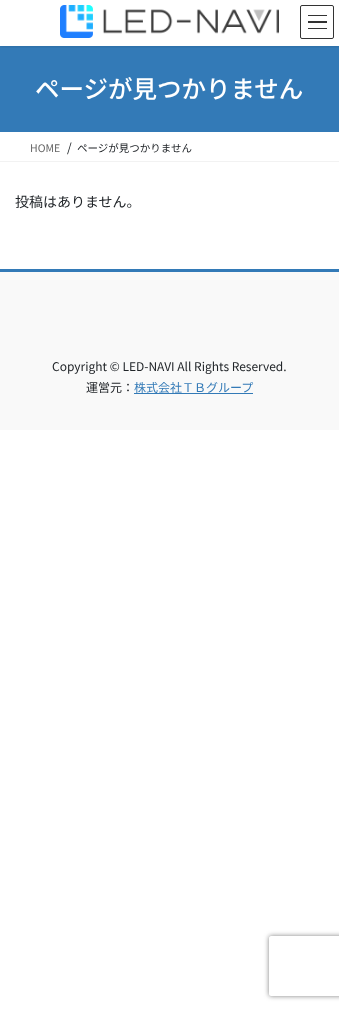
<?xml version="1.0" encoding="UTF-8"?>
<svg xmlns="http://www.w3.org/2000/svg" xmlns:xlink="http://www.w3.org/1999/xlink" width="339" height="1010">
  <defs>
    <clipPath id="clip1"><rect x="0" y="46" width="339" height="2" /></clipPath>
    <clipPath id="clip2"><path d="M 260 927 h 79 v 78 h -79 z m 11 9 h 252 c 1 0 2 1 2 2 v 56 c 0 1 -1 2 -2 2 h -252 c -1 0 -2 -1 -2 -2 v -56 c 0 -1 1 -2 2 -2 z" clip-rule="evenodd" /></clipPath>
  </defs>
  <rect width="100%" height="100%" fill="#ffffff" />
  <rect y="46" width="339" height="86" fill="#337ab7" />
  <g clip-path="url(#clip1)">
    <rect y="1" width="339" height="46" fill="#000000" fill-opacity="0.1" filter="blur(1.5px)" />
  </g>
  <image x="60" y="5" width="219" height="33" xlink:href="image1.png" />
  <rect x="308" y="15" width="19" height="1" fill="#333333" />
  <rect x="308" y="21" width="19" height="2" fill="#333333" />
  <rect x="308" y="28" width="19" height="1" fill="#333333" />
  <rect x="300.5" y="5.5" width="33" height="33" rx="1.5" fill="none" stroke="#333333" />
  <rect y="161" width="339" height="1" fill="#f2f2f2" />
  <rect y="272" width="339" height="158" fill="#f9f9f9" />
  <rect y="269" width="339" height="3" fill="#337ab7" />
  <rect x="134" y="393" width="119" height="1" fill="#337ab7" />
  <g clip-path="url(#clip2)">
    <rect x="269" y="936" width="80" height="60" rx="2" fill="#808080" filter="blur(2.5px)" />
  </g>
  <text x="35" y="98" style="font-family: Noto Sans JP; font-size: 24.5px; font-weight: 500; fill: #ffffff">ページが見つかりません</text>
  <text x="30" y="152" style="font-family: Noto Sans JP; font-size: 10.5px; fill: #666666">HOME</text>
  <text x="67" y="152" style="font-family: Noto Sans JP; font-size: 12px; fill: #212529">/</text>
  <text x="77" y="152" style="font-family: Noto Sans JP; font-size: 10.5px; fill: #212529">ページが見つかりません</text>
  <text x="15" y="207" style="font-family: Noto Sans JP; font-size: 14px; fill: #212529">投稿はありません。</text>
  <text x="52" y="371" style="font-family: Noto Sans JP; font-size: 12px; fill: #212529">Copyright © LED-NAVI All Rights Reserved.</text>
  <text x="86" y="392" style="font-family: Noto Sans JP; font-size: 12px; fill: #212529">運営元：</text>
  <text x="134" y="392" style="font-family: Noto Sans JP; font-size: 12px; fill: #337ab7">株式会社ＴＢグループ</text>
</svg>
